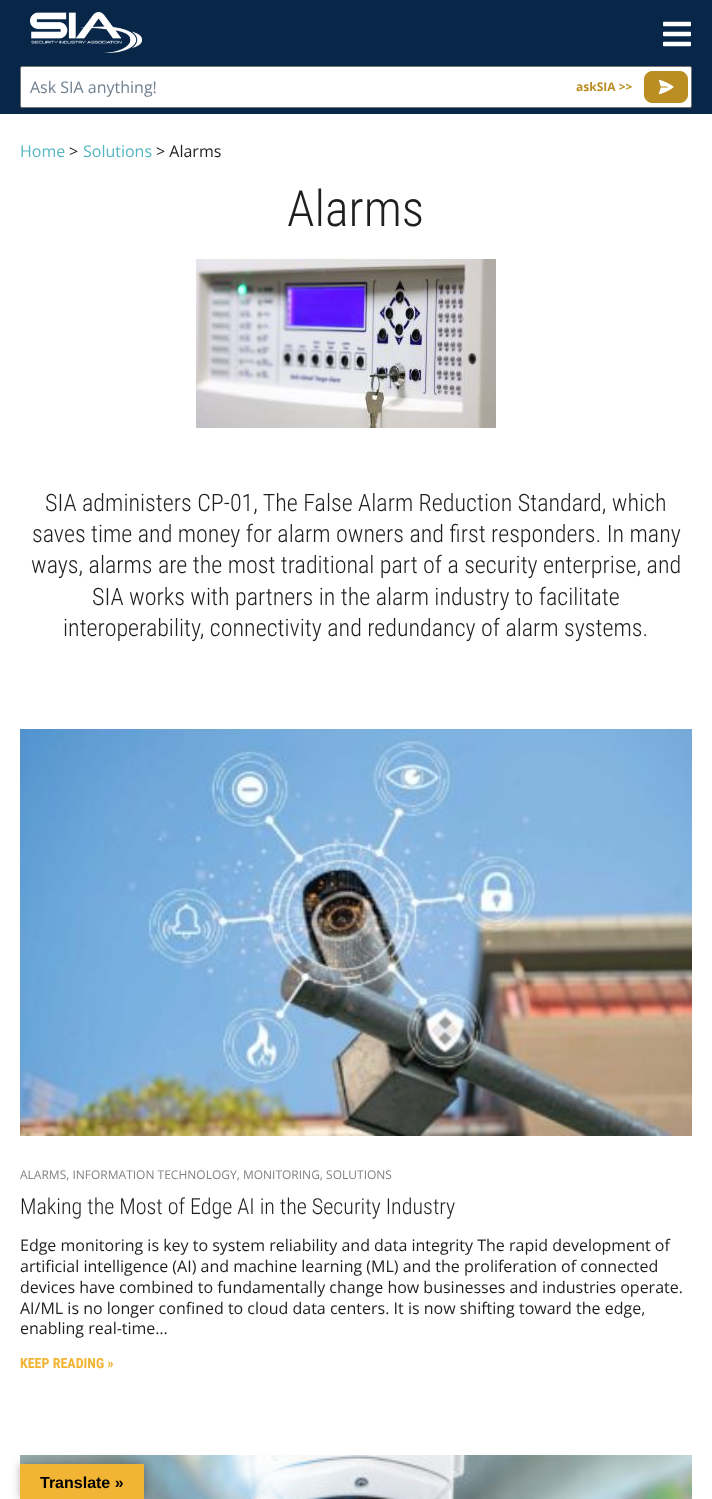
<?xml version="1.0" encoding="UTF-8"?>
<svg xmlns="http://www.w3.org/2000/svg" xmlns:xlink="http://www.w3.org/1999/xlink" width="712" height="1499">
  <rect width="100%" height="100%" fill="#ffffff" />
  <rect width="712" height="114" fill="#082648" />
  <image x="30" y="12" width="112" height="41" xlink:href="image1.png" />
  <image x="663" y="21" width="28" height="26" xlink:href="image2.png" />
  <rect x="20.5" y="66.5" width="671" height="41" rx="1.5" fill="#ffffff" stroke="#767676" />
  <rect x="644.5" y="71.5" width="43" height="31" rx="7.5" fill="#ba8e23" stroke="#ba8e23" />
  <image x="658" y="79" width="16" height="16" xlink:href="image3.png" />
  <image x="196" y="259" width="300" height="169" xlink:href="image4.png" />
  <image x="20" y="729" width="672" height="407" xlink:href="image5.png" />
  <image x="20" y="1455" width="672" height="44" xlink:href="image6.png" />
  <rect x="20" y="1464" width="124" height="35" fill="#000000" fill-opacity="0.3" filter="blur(4.5px)" />
  <rect x="20" y="1464" width="124" height="35" fill="#f1b434" />
  <text x="30" y="93" style="font-family: Open Sans; font-size: 16px; fill: #708090">Ask SIA anything!</text>
  <text x="576" y="91" style="font-family: Open Sans; font-size: 12px; font-weight: bold; fill: #ba8e23">askSIA &gt;&gt;</text>
  <text x="20" y="157" style="font-family: Open Sans; font-size: 16px; fill: #56b6c3">Home</text>
  <text x="69" y="157" style="font-family: Open Sans; font-size: 16px; fill: #1f1f1f">&gt;</text>
  <text x="83" y="157" style="font-family: Open Sans; font-size: 16px; fill: #56b6c3">Solutions</text>
  <text x="156" y="157" style="font-family: Open Sans; font-size: 16px; fill: #1f1f1f">&gt; Alarms</text>
  <text x="287" y="226" style="font-family: Roboto Condensed; font-size: 50px; font-weight: 300; fill: #1f1f1f">Alarms</text>
  <text x="45" y="511" style="font-family: Roboto Condensed; font-size: 24px; font-weight: 300; fill: #1f1f1f">SIA administers CP-01, The False Alarm Reduction Standard, which</text>
  <text x="32" y="542" style="font-family: Roboto Condensed; font-size: 24px; font-weight: 300; fill: #1f1f1f">saves time and money for alarm owners and first responders. In many</text>
  <text x="31" y="573" style="font-family: Roboto Condensed; font-size: 24px; font-weight: 300; fill: #1f1f1f">ways, alarms are the most traditional part of a security enterprise, and</text>
  <text x="92" y="605" style="font-family: Roboto Condensed; font-size: 24px; font-weight: 300; fill: #1f1f1f">SIA works with partners in the alarm industry to facilitate</text>
  <text x="63" y="636" style="font-family: Roboto Condensed; font-size: 24px; font-weight: 300; fill: #1f1f1f">interoperability, connectivity and redundancy of alarm systems.</text>
  <text x="20" y="1179" style="font-family: Open Sans; font-size: 12px; fill: #828282">ALARMS, INFORMATION TECHNOLOGY, MONITORING, SOLUTIONS</text>
  <text x="20" y="1214" style="font-family: Roboto Condensed; font-size: 22px; font-weight: 300; fill: #1f1f1f">Making the Most of Edge AI in the Security Industry</text>
  <text x="20" y="1251" style="font-family: Open Sans; font-size: 16px; fill: #1f1f1f">Edge monitoring is key to system reliability and data integrity The rapid development of</text>
  <text x="20" y="1272" style="font-family: Open Sans; font-size: 16px; fill: #1f1f1f">artificial intelligence (AI) and machine learning (ML) and the proliferation of connected</text>
  <text x="20" y="1293" style="font-family: Open Sans; font-size: 16px; fill: #1f1f1f">devices have combined to fundamentally change how businesses and industries operate.</text>
  <text x="20" y="1314" style="font-family: Open Sans; font-size: 16px; fill: #1f1f1f">AI/ML is no longer confined to cloud data centers. It is now shifting toward the edge,</text>
  <text x="20" y="1334" style="font-family: Open Sans; font-size: 16px; fill: #1f1f1f">enabling real-time…</text>
  <text x="20" y="1368" style="font-family: Roboto Condensed; font-size: 14px; font-weight: bold; fill: #f1b434">KEEP READING »</text>
  <text x="40" y="1488" style="font-family: Liberation Sans; font-size: 16px; font-weight: bold; fill: #000000">Translate »</text>
</svg>
